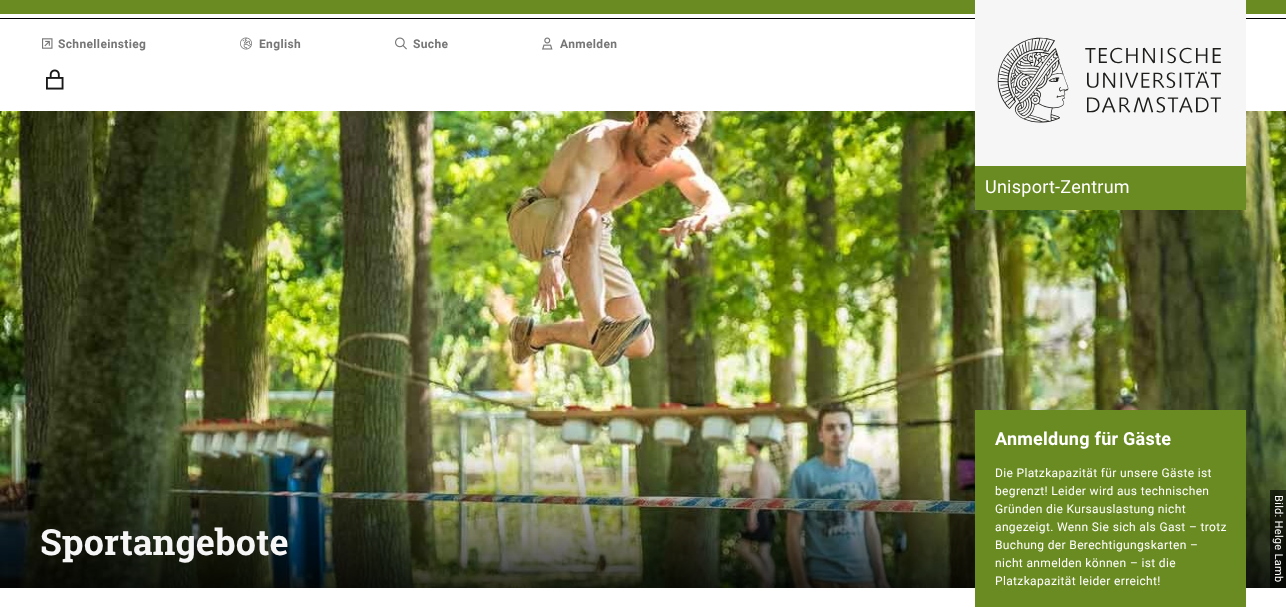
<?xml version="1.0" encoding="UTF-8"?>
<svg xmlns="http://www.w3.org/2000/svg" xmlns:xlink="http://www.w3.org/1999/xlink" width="1286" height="608">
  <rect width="100%" height="100%" fill="#ffffff" />
  <rect width="1286" height="14" fill="#6a8b22" />
  <rect y="18" width="1286" height="1" fill="#000000" />
  <image x="42" y="38" width="11" height="11" xlink:href="image1.png" />
  <image x="240" y="37" width="12" height="13" xlink:href="image2.png" />
  <image x="395" y="37" width="12" height="13" xlink:href="image3.png" />
  <image x="542" y="37" width="11" height="13" xlink:href="image4.png" />
  <image x="46" y="69" width="18" height="21" xlink:href="image5.png" />
  <image x="0" y="111" width="1286" height="477" xlink:href="image7.png" />
  <rect x="975" width="271" height="166" fill="#f6f6f6" />
  <image x="997" y="37" width="224" height="86" xlink:href="image6.png" />
  <rect x="975" y="166" width="271" height="44" fill="#6a8b22" />
  <rect x="975" y="410" width="271" height="197" fill="#6a8b22" />
  <rect x="1270" y="490" width="16" height="98" fill="#000000" fill-opacity="0.6" />
  <text x="58" y="48" style="font-family: Roboto; font-size: 12px; font-weight: bold; letter-spacing: 0.35px; fill: #767676">Schnelleinstieg</text>
  <text x="259" y="48" style="font-family: Roboto; font-size: 12px; font-weight: bold; letter-spacing: 0.35px; fill: #767676">English</text>
  <text x="413" y="48" style="font-family: Roboto; font-size: 12px; font-weight: bold; letter-spacing: 0.35px; fill: #767676">Suche</text>
  <text x="560" y="48" style="font-family: Roboto; font-size: 12px; font-weight: bold; letter-spacing: 0.35px; fill: #767676">Anmelden</text>
  <text x="985" y="193" style="font-family: Roboto; font-size: 18px; letter-spacing: 0.25px; fill: #ffffff">Unisport-Zentrum</text>
  <text x="40" y="555" style="font-family: Roboto Slab; font-size: 36px; font-weight: bold; fill: #f6f6f6">Sportangebote</text>
  <text x="995" y="445" style="font-family: Roboto; font-size: 18px; font-weight: bold; letter-spacing: 0.25px; fill: #ffffff">Anmeldung für Gäste</text>
  <text x="995" y="477" style="font-family: Roboto; font-size: 12px; letter-spacing: 0.35px; fill: #ffffff">Die Platzkapazität für unsere Gäste ist</text>
  <text x="995" y="495" style="font-family: Roboto; font-size: 12px; letter-spacing: 0.35px; fill: #ffffff">begrenzt! Leider wird aus technischen</text>
  <text x="995" y="513" style="font-family: Roboto; font-size: 12px; letter-spacing: 0.35px; fill: #ffffff">Gründen die Kursauslastung nicht</text>
  <text x="995" y="531" style="font-family: Roboto; font-size: 12px; letter-spacing: 0.35px; fill: #ffffff">angezeigt. Wenn Sie sich als Gast – trotz</text>
  <text x="995" y="549" style="font-family: Roboto; font-size: 12px; letter-spacing: 0.35px; fill: #ffffff">Buchung der Berechtigungskarten –</text>
  <text x="995" y="567" style="font-family: Roboto; font-size: 12px; letter-spacing: 0.35px; fill: #ffffff">nicht anmelden können – ist die</text>
  <text x="995" y="585" style="font-family: Roboto; font-size: 12px; letter-spacing: 0.35px; fill: #ffffff">Platzkapazität leider erreicht!</text>
  <text x="1275" y="495" transform="rotate(90 1275 495)" style="font-family: Roboto; font-size: 11px; letter-spacing: 0.3px; fill: #ffffff">Bild: Helge Lamb</text>
</svg>
